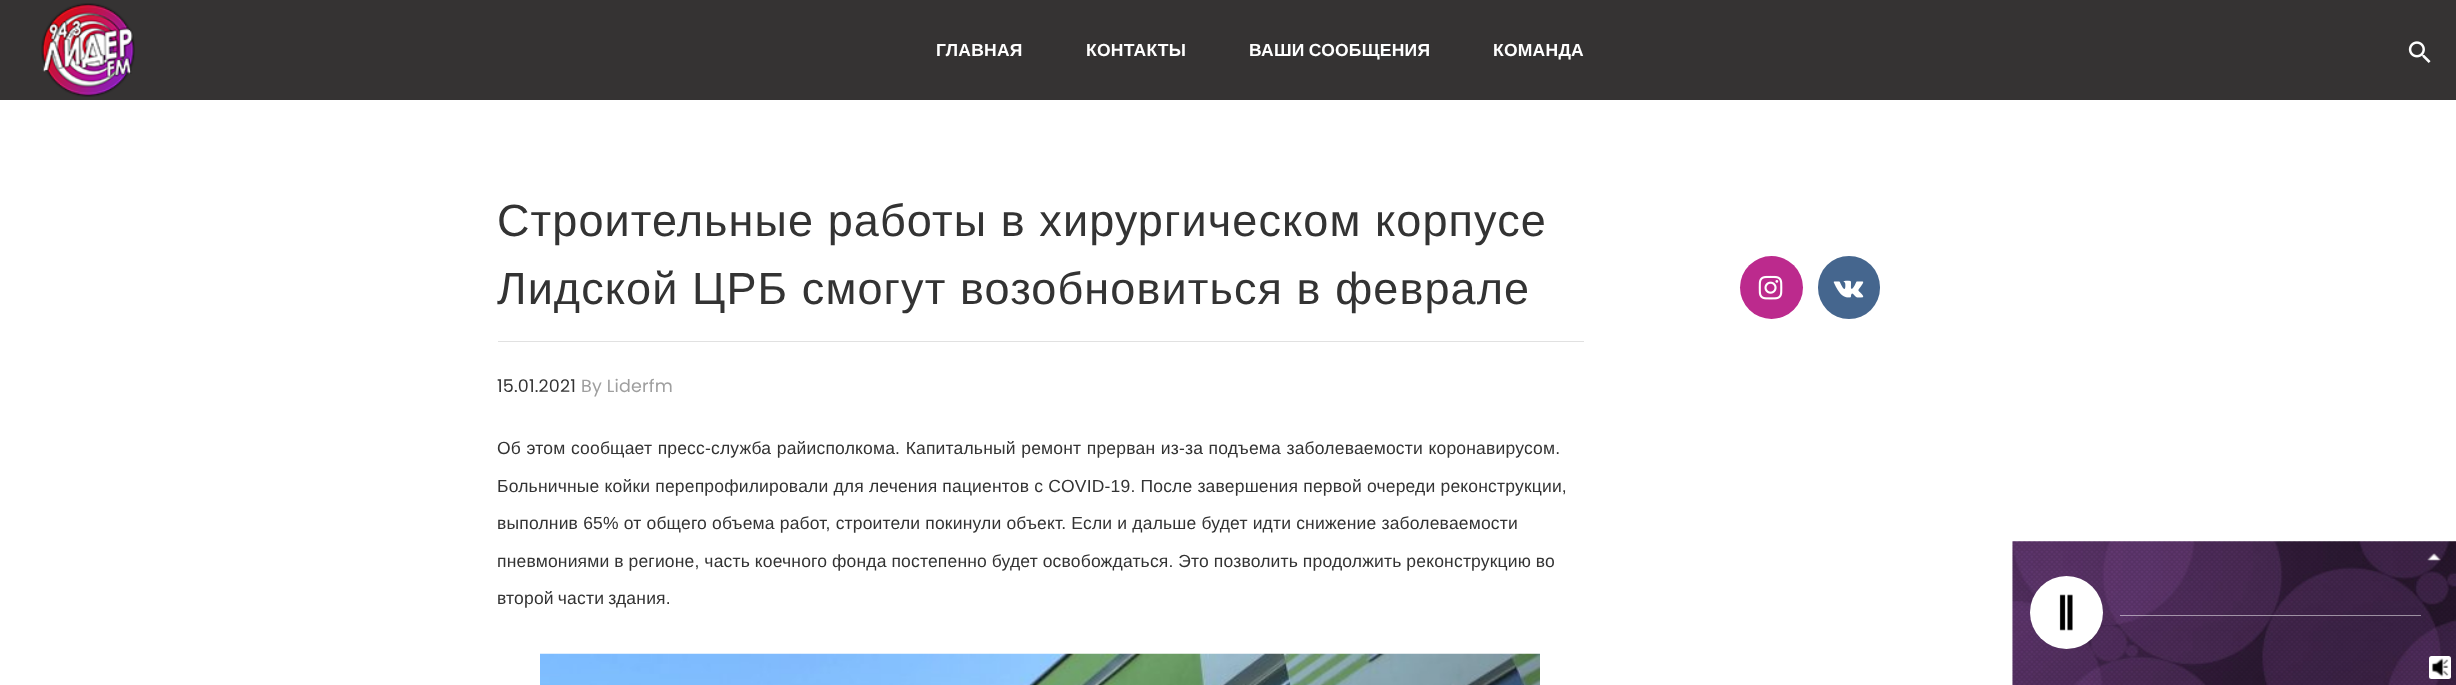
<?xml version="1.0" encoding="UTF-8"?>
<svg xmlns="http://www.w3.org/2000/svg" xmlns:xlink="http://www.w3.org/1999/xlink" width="2456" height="685">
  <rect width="100%" height="100%" fill="#ffffff" />
  <rect width="2456" height="100" fill="#353333" />
  <image x="41" y="3" width="94" height="94" xlink:href="image1.png" />
  <image x="2408" y="41" width="23" height="22" xlink:href="image2.png" />
  <rect x="498" y="341" width="1086" height="1" fill="#e1e1e1" />
  <image x="540" y="653" width="1000" height="32" xlink:href="image3.png" />
  <circle cx="1771.5" cy="287.5" r="31.5" fill="#bc2a8d" />
  <image x="1758" y="275" width="25" height="25" xlink:href="image4.png" />
  <rect x="1818" y="256" width="62" height="63" rx="31" fill="#45668e" />
  <image x="1833" y="280" width="31" height="18" xlink:href="image5.png" />
  <image x="2012" y="541" width="444" height="144" xlink:href="image6.png" />
  <image x="2012" y="541" width="444" height="144" xlink:href="image7.png" />
  <image x="2427" y="553" width="14" height="8" xlink:href="image8.png" />
  <circle cx="2066.5" cy="612.5" r="36.5" fill="#ffffff" />
  <image x="2059" y="594" width="14" height="37" xlink:href="image9.png" />
  <rect x="2429" y="656" width="22" height="23" rx="2.5" fill="#ffffff" />
  <image x="2431" y="658" width="18" height="19" xlink:href="image10.png" />
  <rect x="2120" y="615" width="301" height="1" fill="#ffffff" fill-opacity="0.5" />
  <text x="936" y="56" style="font-family: Liberation Sans; font-size: 17.5px; font-weight: bold; letter-spacing: 0.25px; fill: #ffffff">ГЛАВНАЯ</text>
  <text x="1086" y="56" style="font-family: Liberation Sans; font-size: 17.5px; font-weight: bold; letter-spacing: 0.25px; fill: #ffffff">КОНТАКТЫ</text>
  <text x="1249" y="56" word-spacing="-1" style="font-family: Liberation Sans; font-size: 17.5px; font-weight: bold; letter-spacing: 0.25px; fill: #ffffff">ВАШИ СООБЩЕНИЯ</text>
  <text x="1493" y="56" style="font-family: Liberation Sans; font-size: 17.5px; font-weight: bold; letter-spacing: 0.25px; fill: #ffffff">КОМАНДА</text>
  <text x="497" y="236" style="font-family: Liberation Sans; font-size: 45px; letter-spacing: 1.1px; fill: #333333">Строительные работы в хирургическом корпусе</text>
  <text x="497" y="304" style="font-family: Liberation Sans; font-size: 45px; letter-spacing: 1.1px; fill: #333333">Лидской ЦРБ смогут возобновиться в феврале</text>
  <text x="497" y="392" style="font-family: Poppins; font-size: 17.5px; letter-spacing: 0.18px; fill: #333333">15.01.2021</text>
  <text x="581" y="392" style="font-family: Poppins; font-size: 17.5px; letter-spacing: 0.18px; fill: #9f9f9f">By Liderfm</text>
  <text x="497" y="454" word-spacing="0.5" style="font-family: Liberation Sans; font-size: 17.5px; letter-spacing: 0.18px; fill: #333333">Об этом сообщает пресс-служба райисполкома. Капитальный ремонт прерван из-за подъема заболеваемости коронавирусом.</text>
  <text x="497" y="492" style="font-family: Liberation Sans; font-size: 17.5px; letter-spacing: 0.18px; fill: #333333">Больничные койки перепрофилировали для лечения пациентов с COVID-19. После завершения первой очереди реконструкции,</text>
  <text x="497" y="529" style="font-family: Liberation Sans; font-size: 17.5px; letter-spacing: 0.18px; fill: #333333">выполнив 65% от общего объема работ, строители покинули объект. Если и дальше будет идти снижение заболеваемости</text>
  <text x="497" y="567" word-spacing="-0.25" style="font-family: Liberation Sans; font-size: 17.5px; letter-spacing: 0.18px; fill: #333333">пневмониями в регионе, часть коечного фонда постепенно будет освобождаться. Это позволить продолжить реконструкцию во</text>
  <text x="497" y="604" word-spacing="-1" style="font-family: Liberation Sans; font-size: 17.5px; letter-spacing: 0.18px; fill: #333333">второй части здания.</text>
</svg>
